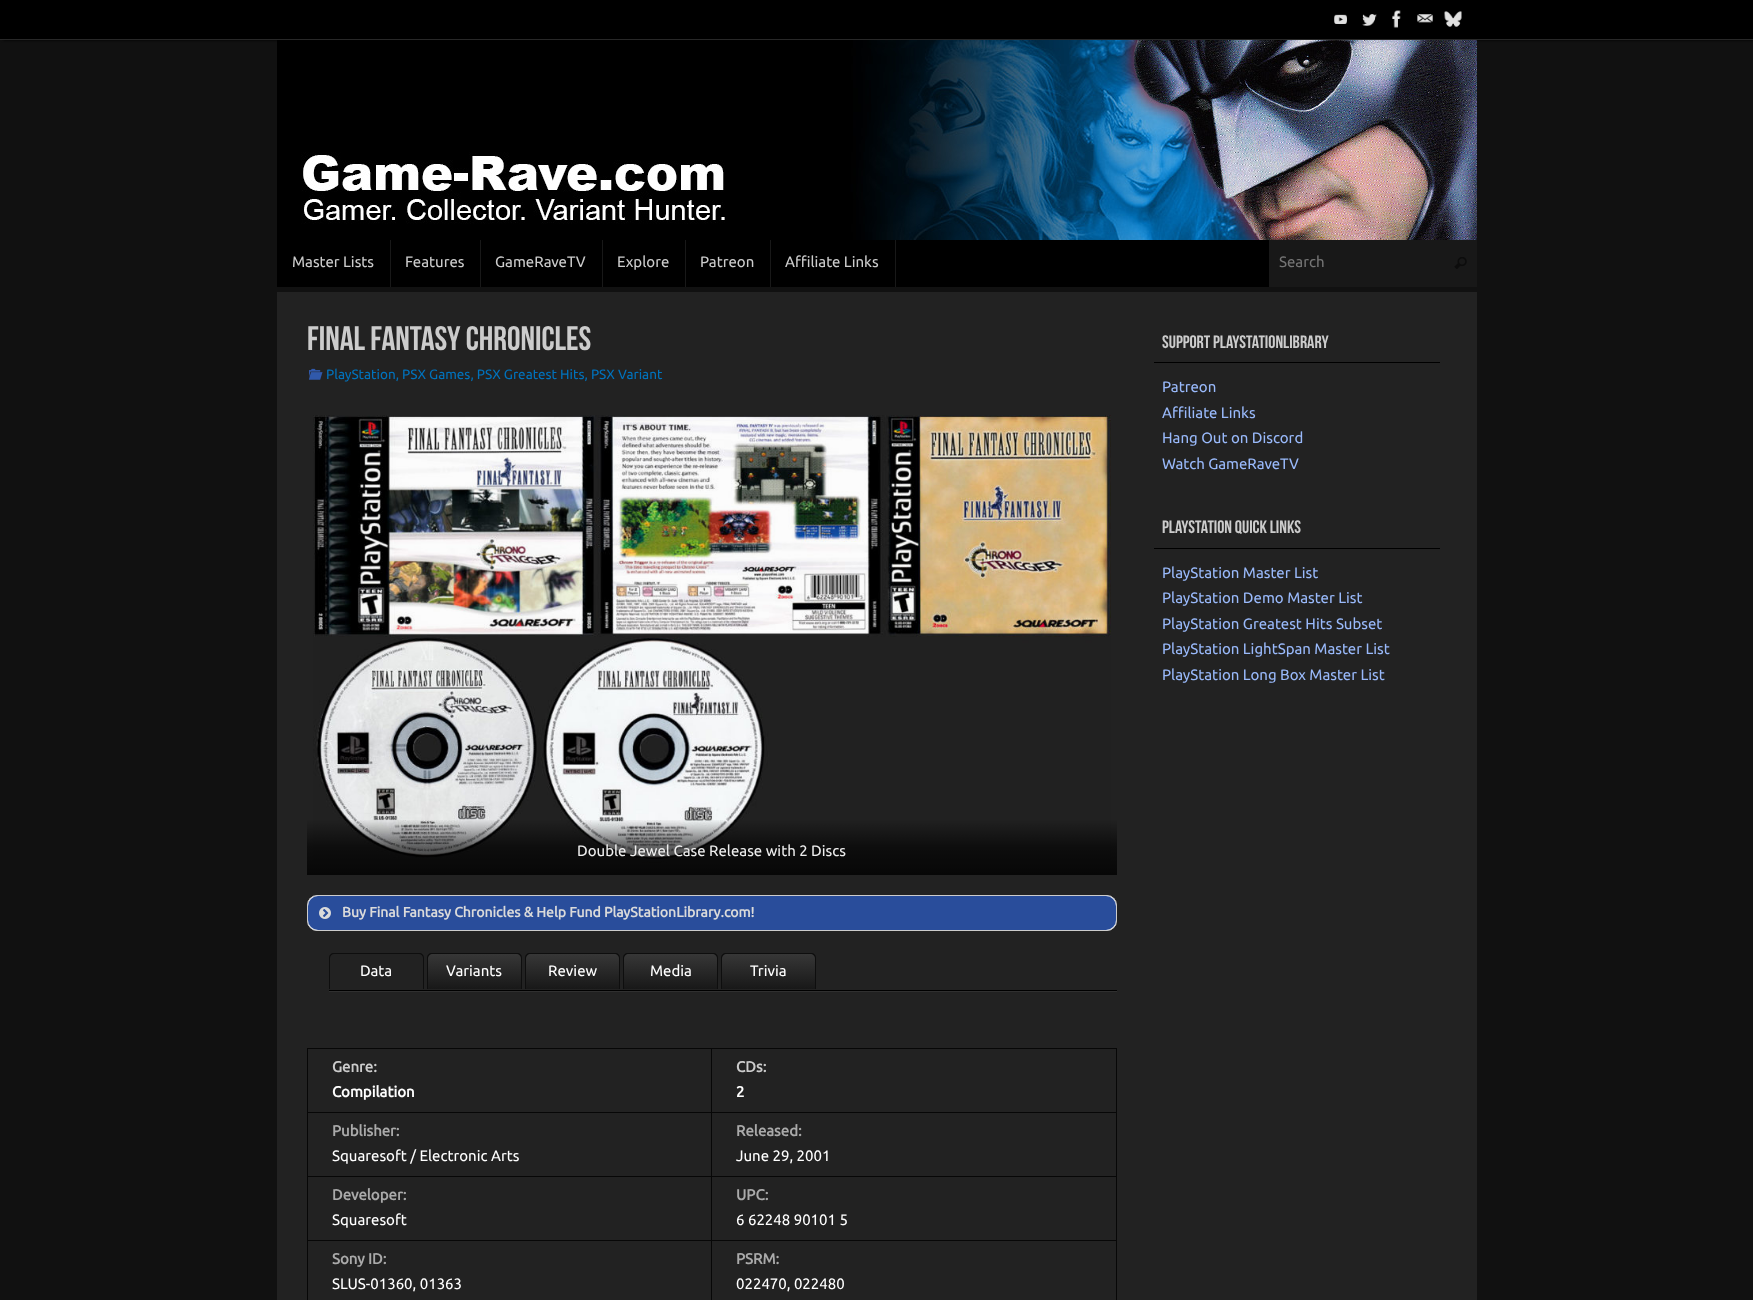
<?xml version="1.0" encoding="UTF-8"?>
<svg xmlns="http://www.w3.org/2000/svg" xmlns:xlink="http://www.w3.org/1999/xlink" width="1753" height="1300">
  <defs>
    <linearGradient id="g1" gradientUnits="userSpaceOnUse" x1="712" y1="819" x2="712" y2="875"><stop offset="0" stop-color="#000000" stop-opacity="0" /><stop offset="0.5" stop-color="#000000" stop-opacity="0.6" /><stop offset="1" stop-color="#000000" stop-opacity="0.8" /></linearGradient>
    <clipPath id="clip1"><path d="M 432 954 h 85 c 2 0 4 2 4 4 v 31 h -93 v -31 c 0 -2 2 -4 4 -4 z" /></clipPath>
    <linearGradient id="g2" gradientUnits="userSpaceOnUse" x1="475" y1="954" x2="475" y2="989"><stop offset="0" stop-color="#373737" /><stop offset="1" stop-color="#181818" /></linearGradient>
    <clipPath id="clip2"><path d="M 530 954 h 85 c 2 0 4 2 4 4 v 31 h -93 v -31 c 0 -2 2 -4 4 -4 z" /></clipPath>
    <linearGradient id="g3" gradientUnits="userSpaceOnUse" x1="573" y1="954" x2="573" y2="989"><stop offset="0" stop-color="#373737" /><stop offset="1" stop-color="#181818" /></linearGradient>
    <clipPath id="clip3"><path d="M 628 954 h 85 c 2 0 4 2 4 4 v 31 h -93 v -31 c 0 -2 2 -4 4 -4 z" /></clipPath>
    <linearGradient id="g4" gradientUnits="userSpaceOnUse" x1="671" y1="954" x2="671" y2="989"><stop offset="0" stop-color="#373737" /><stop offset="1" stop-color="#181818" /></linearGradient>
    <clipPath id="clip4"><path d="M 726 954 h 85 c 2 0 4 2 4 4 v 31 h -93 v -31 c 0 -2 2 -4 4 -4 z" /></clipPath>
    <linearGradient id="g5" gradientUnits="userSpaceOnUse" x1="769" y1="954" x2="769" y2="989"><stop offset="0" stop-color="#373737" /><stop offset="1" stop-color="#181818" /></linearGradient>
  </defs>
  <rect width="100%" height="100%" fill="#111111" />
  <rect x="3" width="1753" height="40" fill="#000000" filter="blur(1.5px)" />
  <rect width="1753" height="39" fill="#000000" />
  <rect y="39" width="1753" height="1" fill="#282828" />
  <image x="1334" y="14" width="13" height="10" xlink:href="image1.png" />
  <image x="1362" y="14" width="15" height="12" xlink:href="image2.png" />
  <image x="1392" y="10" width="9" height="18" xlink:href="image3.png" />
  <image x="1417" y="14" width="16" height="9" xlink:href="image4.png" />
  <image x="1444" y="11" width="18" height="16" xlink:href="image5.png" />
  <image x="277" y="40" width="1200" height="200" xlink:href="image6.png" />
  <rect x="277" y="240" width="992" height="47" fill="#000000" />
  <rect x="390" y="240" width="1" height="47" fill="#181818" />
  <rect x="480" y="240" width="1" height="47" fill="#181818" />
  <rect x="602" y="240" width="1" height="47" fill="#181818" />
  <rect x="685" y="240" width="1" height="47" fill="#181818" />
  <rect x="770" y="240" width="1" height="47" fill="#181818" />
  <rect x="895" y="240" width="1" height="47" fill="#181818" />
  <rect x="1269" y="240" width="208" height="47" fill="#181818" />
  <image x="1454" y="257" width="13" height="12" xlink:href="image7.png" />
  <rect x="277" y="292" width="1200" height="1008" fill="#222222" />
  <image x="309" y="368" width="14" height="12" xlink:href="image8.png" />
  <image x="313" y="415" width="798" height="448" xlink:href="image9.png" />
  <rect x="307" y="820" width="810" height="55" fill="url(#g1)" />
  <rect x="307.5" y="895.5" width="809" height="35" rx="9.5" fill="#ffffff" stroke="#cccccc" />
  <rect x="308" y="896" width="808" height="34" rx="10" fill="#294d9b" />
  <image x="319" y="907" width="12" height="12" xlink:href="image10.png" />
  <image x="329" y="990" width="788" height="2" xlink:href="image11.png" />
  <path d="M 334 953 h 85 c 3 0 5 2 5 5 v 31 h -95 v -31 c 0 -3 2 -5 5 -5 z m 0 1 h 85 c 2 0 4 2 4 4 v 31 h -93 v -31 c 0 -2 2 -4 4 -4 z" fill="#0e0e0e" fill-rule="evenodd" />
  <path d="M 432 953 h 85 c 3 0 5 2 5 5 v 31 h -95 v -31 c 0 -3 2 -5 5 -5 z m 0 1 h 85 c 2 0 4 2 4 4 v 31 h -93 v -31 c 0 -2 2 -4 4 -4 z" fill="#0e0e0e" fill-rule="evenodd" />
  <g clip-path="url(#clip1)">
    <path d="M 433 954 h 83 c 3 0 5 2 5 5 v 30 h -93 v -30 c 0 -3 2 -5 5 -5 z" fill="url(#g2)" />
  </g>
  <path d="M 530 953 h 85 c 3 0 5 2 5 5 v 31 h -95 v -31 c 0 -3 2 -5 5 -5 z m 0 1 h 85 c 2 0 4 2 4 4 v 31 h -93 v -31 c 0 -2 2 -4 4 -4 z" fill="#0e0e0e" fill-rule="evenodd" />
  <g clip-path="url(#clip2)">
    <path d="M 531 954 h 83 c 3 0 5 2 5 5 v 30 h -93 v -30 c 0 -3 2 -5 5 -5 z" fill="url(#g3)" />
  </g>
  <path d="M 628 953 h 85 c 3 0 5 2 5 5 v 31 h -95 v -31 c 0 -3 2 -5 5 -5 z m 0 1 h 85 c 2 0 4 2 4 4 v 31 h -93 v -31 c 0 -2 2 -4 4 -4 z" fill="#0e0e0e" fill-rule="evenodd" />
  <g clip-path="url(#clip3)">
    <path d="M 629 954 h 83 c 3 0 5 2 5 5 v 30 h -93 v -30 c 0 -3 2 -5 5 -5 z" fill="url(#g4)" />
  </g>
  <path d="M 726 953 h 85 c 3 0 5 2 5 5 v 31 h -95 v -31 c 0 -3 2 -5 5 -5 z m 0 1 h 85 c 2 0 4 2 4 4 v 31 h -93 v -31 c 0 -2 2 -4 4 -4 z" fill="#0e0e0e" fill-rule="evenodd" />
  <g clip-path="url(#clip4)">
    <path d="M 727 954 h 83 c 3 0 5 2 5 5 v 30 h -93 v -30 c 0 -3 2 -5 5 -5 z" fill="url(#g5)" />
  </g>
  <rect x="307" y="1048" width="810" height="1" fill="#070707" />
  <rect x="1116" y="1048" width="1" height="252" fill="#070707" />
  <rect x="307" y="1048" width="1" height="252" fill="#070707" />
  <rect x="307" y="1112" width="810" height="1" fill="#070707" />
  <rect x="307" y="1176" width="810" height="1" fill="#070707" />
  <rect x="307" y="1240" width="810" height="1" fill="#070707" />
  <rect x="711" y="1240" width="1" height="60" fill="#070707" />
  <rect x="711" y="1176" width="1" height="65" fill="#070707" />
  <rect x="711" y="1048" width="1" height="129" fill="#070707" />
  <rect x="1154" y="362" width="286" height="1" fill="#000000" />
  <rect x="1154" y="548" width="286" height="1" fill="#000000" />
  <text x="292" y="267" style="font-family: Ubuntu; font-size: 15px; fill: #cccccc">Master Lists</text>
  <text x="405" y="267" style="font-family: Ubuntu; font-size: 15px; fill: #cccccc">Features</text>
  <text x="495" y="267" style="font-family: Ubuntu; font-size: 15px; fill: #cccccc">GameRaveTV</text>
  <text x="617" y="267" style="font-family: Ubuntu; font-size: 15px; fill: #cccccc">Explore</text>
  <text x="700" y="267" style="font-family: Ubuntu; font-size: 15px; fill: #cccccc">Patreon</text>
  <text x="785" y="267" style="font-family: Ubuntu; font-size: 15px; fill: #cccccc">Affiliate Links</text>
  <text x="1279" y="267" style="font-family: Ubuntu; font-size: 15px; fill: #757575">Search</text>
  <text x="307" y="350" style="font-family: Bebas Neue; font-size: 34px; fill: #cccccc">Final Fantasy Chronicles</text>
  <text x="326" y="379" style="font-family: Ubuntu; font-size: 13.5px; fill: #0072bc">PlayStation, PSX Games, PSX Greatest Hits, PSX Variant</text>
  <text x="577" y="856" style="font-family: Ubuntu; font-size: 15px; fill: #eeeeee">Double Jewel Case Release with 2 Discs</text>
  <text x="342" y="917" style="font-family: Ubuntu; font-size: 14px; font-weight: bold; fill: #dadada">Buy Final Fantasy Chronicles &amp; Help Fund PlayStationLibrary.com!</text>
  <text x="360" y="976" style="font-family: Ubuntu; font-size: 15px; fill: #ffffff">Data</text>
  <text x="446" y="976" style="font-family: Ubuntu; font-size: 15px; fill: #ffffff">Variants</text>
  <text x="548" y="976" style="font-family: Ubuntu; font-size: 15px; fill: #ffffff">Review</text>
  <text x="650" y="976" style="font-family: Ubuntu; font-size: 15px; fill: #ffffff">Media</text>
  <text x="750" y="976" style="font-family: Ubuntu; font-size: 15px; fill: #ffffff">Trivia</text>
  <text x="332" y="1072" style="font-family: Ubuntu; font-size: 15px; font-weight: bold; fill: #cccccc">Genre:</text>
  <text x="332" y="1097" style="font-family: Ubuntu; font-size: 15px; font-weight: bold; fill: #ffffff">Compilation</text>
  <text x="736" y="1072" style="font-family: Ubuntu; font-size: 15px; font-weight: bold; fill: #cccccc">CDs:</text>
  <text x="736" y="1097" style="font-family: Ubuntu; font-size: 15px; font-weight: bold; fill: #ffffff">2</text>
  <text x="332" y="1136" style="font-family: Ubuntu; font-size: 15px; font-weight: bold; fill: #aaaaaa">Publisher:</text>
  <text x="332" y="1161" style="font-family: Ubuntu; font-size: 15px; fill: #ffffff">Squaresoft / Electronic Arts</text>
  <text x="736" y="1136" style="font-family: Ubuntu; font-size: 15px; font-weight: bold; fill: #aaaaaa">Released:</text>
  <text x="736" y="1161" style="font-family: Ubuntu; font-size: 15px; fill: #ffffff">June 29, 2001</text>
  <text x="332" y="1200" style="font-family: Ubuntu; font-size: 15px; font-weight: bold; fill: #aaaaaa">Developer:</text>
  <text x="332" y="1225" style="font-family: Ubuntu; font-size: 15px; fill: #ffffff">Squaresoft</text>
  <text x="736" y="1200" style="font-family: Ubuntu; font-size: 15px; font-weight: bold; fill: #aaaaaa">UPC:</text>
  <text x="736" y="1225" style="font-family: Ubuntu; font-size: 15px; fill: #ffffff">6 62248 90101 5</text>
  <text x="332" y="1264" style="font-family: Ubuntu; font-size: 15px; font-weight: bold; fill: #aaaaaa">Sony ID:</text>
  <text x="332" y="1289" style="font-family: Ubuntu; font-size: 15px; fill: #ffffff">SLUS-01360, 01363</text>
  <text x="736" y="1264" style="font-family: Ubuntu; font-size: 15px; font-weight: bold; fill: #aaaaaa">PSRM:</text>
  <text x="736" y="1289" style="font-family: Ubuntu; font-size: 15px; fill: #ffffff">022470, 022480</text>
  <text x="1162" y="348" style="font-family: Bebas Neue; font-size: 18px; fill: #cccccc">Support PlayStationLibrary</text>
  <text x="1162" y="392" style="font-family: Ubuntu; font-size: 15px; fill: #99b9fa">Patreon</text>
  <text x="1162" y="418" style="font-family: Ubuntu; font-size: 15px; fill: #99b9fa">Affiliate Links</text>
  <text x="1162" y="443" style="font-family: Ubuntu; font-size: 15px; fill: #99b9fa">Hang Out on Discord</text>
  <text x="1162" y="469" style="font-family: Ubuntu; font-size: 15px; fill: #99b9fa">Watch GameRaveTV</text>
  <text x="1162" y="533" style="font-family: Bebas Neue; font-size: 18px; fill: #cccccc">PlayStation Quick Links</text>
  <text x="1162" y="578" style="font-family: Ubuntu; font-size: 15px; fill: #99b9fa">PlayStation Master List</text>
  <text x="1162" y="603" style="font-family: Ubuntu; font-size: 15px; fill: #99b9fa">PlayStation Demo Master List</text>
  <text x="1162" y="629" style="font-family: Ubuntu; font-size: 15px; fill: #99b9fa">PlayStation Greatest Hits Subset</text>
  <text x="1162" y="654" style="font-family: Ubuntu; font-size: 15px; fill: #99b9fa">PlayStation LightSpan Master List</text>
  <text x="1162" y="680" style="font-family: Ubuntu; font-size: 15px; fill: #99b9fa">PlayStation Long Box Master List</text>
</svg>
